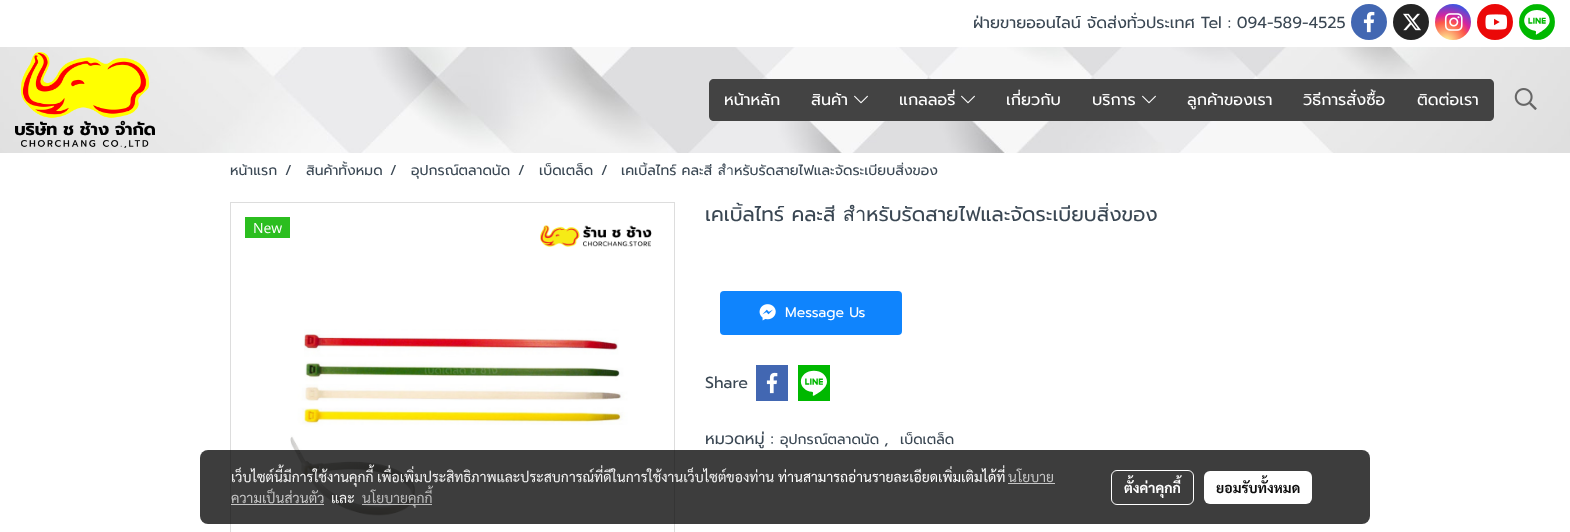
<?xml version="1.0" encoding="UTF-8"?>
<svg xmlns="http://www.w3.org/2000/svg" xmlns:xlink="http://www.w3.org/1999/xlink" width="1570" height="532">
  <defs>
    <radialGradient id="g1" gradientUnits="userSpaceOnUse" cx="1446" cy="43" r="46"><stop offset="0" stop-color="#fdf497" /><stop offset="0.05" stop-color="#fdf497" /><stop offset="0.45" stop-color="#fd5949" /><stop offset="0.6" stop-color="#d6249f" /><stop offset="0.9" stop-color="#285aeb" /></radialGradient>
    <clipPath id="clip1"><rect x="973" y="7" width="372" height="32" /></clipPath>
  </defs>
  <rect width="100%" height="100%" fill="#ffffff" />
  <image x="0" y="47" width="1570" height="106" xlink:href="image1.png" />
  <circle cx="1369" cy="22" r="18" fill="#4267b2" />
  <image x="1363" y="11" width="12" height="22" xlink:href="image2.png" />
  <circle cx="1411" cy="22" r="18" fill="#242424" />
  <image x="1403" y="13" width="18" height="18" xlink:href="image3.png" />
  <circle cx="1453" cy="22" r="18" fill="url(#g1)" />
  <image x="1444" y="13" width="19" height="18" xlink:href="image4.png" />
  <circle cx="1495" cy="22" r="18" fill="#eb0808" />
  <image x="1485" y="14" width="23" height="16" xlink:href="image5.png" />
  <circle cx="1537" cy="22" r="18" fill="#00b800" />
  <image x="1519" y="4" width="36" height="36" xlink:href="image6.png" />
  <image x="15" y="52" width="140" height="96" xlink:href="image7.png" />
  <rect x="795" y="79" width="1" height="42" fill="#434343" />
  <path d="M 714 79 h 81 v 42 h -81 c -3 0 -5 -2 -5 -5 v -32 c 0 -3 2 -5 5 -5 z" fill="#434343" />
  <rect x="796" y="79" width="88" height="42" fill="#434343" />
  <image x="854" y="95" width="14" height="9" xlink:href="image8.png" />
  <rect x="884" y="79" width="107" height="42" fill="#434343" />
  <image x="961" y="95" width="14" height="9" xlink:href="image8.png" />
  <rect x="991" y="79" width="86" height="42" fill="#434343" />
  <rect x="1077" y="79" width="95" height="42" fill="#434343" />
  <image x="1142" y="95" width="14" height="9" xlink:href="image8.png" />
  <rect x="1172" y="79" width="116" height="42" fill="#434343" />
  <rect x="1288" y="79" width="114" height="42" fill="#434343" />
  <path d="M 1402 79 h 87 c 3 0 5 2 5 5 v 32 c 0 3 -2 5 -5 5 h -87 z" fill="#434343" />
  <image x="1514" y="88" width="23" height="22" xlink:href="image9.png" />
  <rect x="230.5" y="202.5" width="444" height="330" fill="none" stroke="#dddddd" />
  <image x="290" y="225" width="362" height="291" xlink:href="image10.png" />
  <rect x="245" y="217" width="45" height="21" fill="#2bbe1f" />
  <rect x="720" y="291" width="182" height="44" rx="4" fill="#0f84fd" />
  <image x="759" y="304" width="17" height="17" xlink:href="image11.png" />
  <rect x="756" y="365" width="32" height="36" fill="#4267b2" />
  <image x="766" y="372" width="12" height="22" xlink:href="image2.png" />
  <rect x="798" y="365" width="32" height="36" fill="#00b800" />
  <image x="800" y="370" width="27" height="26" xlink:href="image12.png" />
  <rect x="200" y="450" width="1170" height="74" rx="8" fill="#000000" fill-opacity="0.76" />
  <rect x="1008" y="483" width="47" height="1" fill="#c5c5c5" />
  <rect x="231" y="504" width="93" height="1" fill="#c5c5c5" />
  <rect x="362" y="504" width="70" height="1" fill="#c2c2c2" fill-opacity="0.95" />
  <rect x="1111.5" y="470.5" width="82" height="34" rx="5.5" fill="none" stroke="#ffffff" />
  <rect x="1204" y="471" width="108" height="33" rx="6" fill="#ffffff" />
  <g clip-path="url(#clip1)">
    <text x="973" y="28" style="font-family: Prompt; font-size: 16px; fill: #3a4753">ฝ่ายขายออนไลน์ จัดส่งทั่วประเทศ Tel : 094-589-4525</text>
  </g>
  <text x="724" y="105" style="font-family: Prompt; font-size: 16px; fill: #ffffff">หน้าหลัก</text>
  <text x="811" y="105" style="font-family: Prompt; font-size: 16px; fill: #ffffff">สินค้า</text>
  <text x="899" y="105" style="font-family: Prompt; font-size: 16px; fill: #ffffff">แกลลอรี่</text>
  <text x="1006" y="105" style="font-family: Prompt; font-size: 16px; fill: #ffffff">เกี่ยวกับ</text>
  <text x="1092" y="105" style="font-family: Prompt; font-size: 16px; fill: #ffffff">บริการ</text>
  <text x="1187" y="105" style="font-family: Prompt; font-size: 16px; fill: #ffffff">ลูกค้าของเรา</text>
  <text x="1303" y="105" style="font-family: Prompt; font-size: 16px; fill: #ffffff">วิธีการสั่งซื้อ</text>
  <text x="1417" y="105" style="font-family: Prompt; font-size: 16px; fill: #ffffff">ติดต่อเรา</text>
  <text x="230" y="175" style="font-family: Prompt; font-size: 14px; fill: #3a4753">หน้าแรก</text>
  <text x="285" y="175" style="font-family: Prompt; font-size: 14px; fill: #3a4753">/</text>
  <text x="306" y="175" style="font-family: Prompt; font-size: 14px; fill: #3a4753">สินค้าทั้งหมด</text>
  <text x="390" y="175" style="font-family: Prompt; font-size: 14px; fill: #3a4753">/</text>
  <text x="411" y="175" style="font-family: Prompt; font-size: 14px; fill: #3a4753">อุปกรณ์ตลาดนัด</text>
  <text x="518" y="175" style="font-family: Prompt; font-size: 14px; fill: #3a4753">/</text>
  <text x="539" y="175" style="font-family: Prompt; font-size: 14px; fill: #3a4753">เบ็ดเตล็ด</text>
  <text x="601" y="175" style="font-family: Prompt; font-size: 14px; fill: #3a4753">/</text>
  <text x="621" y="175" style="font-family: Prompt; font-size: 14px; fill: #3a4753">เคเบิ้ลไทร์ คละสี สำหรับรัดสายไฟและจัดระเบียบสิ่งของ</text>
  <text x="253" y="233" style="font-family: Open Sans; font-size: 14px; fill: #ffffff">New</text>
  <text x="705" y="221" style="font-family: Prompt; font-size: 20px; fill: #3a4753">เคเบิ้ลไทร์ คละสี สำหรับรัดสายไฟและจัดระเบียบสิ่งของ</text>
  <text x="785" y="317" style="font-family: Prompt; font-size: 14px; fill: #ffffff">Message Us</text>
  <text x="705" y="388" style="font-family: Prompt; font-size: 16px; fill: #3a4753">Share</text>
  <text x="705" y="444" style="font-family: Prompt; font-size: 16px; fill: #3a4753">หมวดหมู่ :</text>
  <text x="780" y="444" style="font-family: Prompt; font-size: 14px; fill: #3a4753">อุปกรณ์ตลาดนัด</text>
  <text x="884" y="444" style="font-family: Prompt; font-size: 16px; fill: #3a4753">,</text>
  <text x="900" y="444" style="font-family: Prompt; font-size: 14px; fill: #3a4753">เบ็ดเตล็ด</text>
  <text x="231" y="482" style="font-family: Sarabun; font-size: 14px; fill: #f5f5f5">เว็บไซต์นี้มีการใช้งานคุกกี้ เพื่อเพิ่มประสิทธิภาพและประสบการณ์ที่ดีในการใช้งานเว็บไซต์ของท่าน</text>
  <text x="778" y="482" style="font-family: Sarabun; font-size: 14px; fill: #ffffff">ท่านสามารถอ่านรายละเอียดเพิ่มเติมได้ที่</text>
  <text x="1008" y="482" style="font-family: Sarabun; font-size: 14px; fill: #c5c5c5">นโยบาย</text>
  <text x="231" y="503" style="font-family: Sarabun; font-size: 14px; fill: #c5c5c5">ความเป็นส่วนตัว</text>
  <text x="331" y="503" style="font-family: Sarabun; font-size: 14px; fill: #f5f5f5">และ</text>
  <text x="362" y="503" style="font-family: Sarabun; font-size: 14px; fill: #bbbbbb">นโยบายคุกกี้</text>
  <text x="1124" y="493" style="font-family: Sarabun; font-size: 14px; font-weight: bold; fill: #ffffff">ตั้งค่าคุกกี้</text>
  <text x="1216" y="493" style="font-family: Sarabun; font-size: 14px; font-weight: bold; fill: #0d0d0d">ยอมรับทั้งหมด</text>
</svg>
